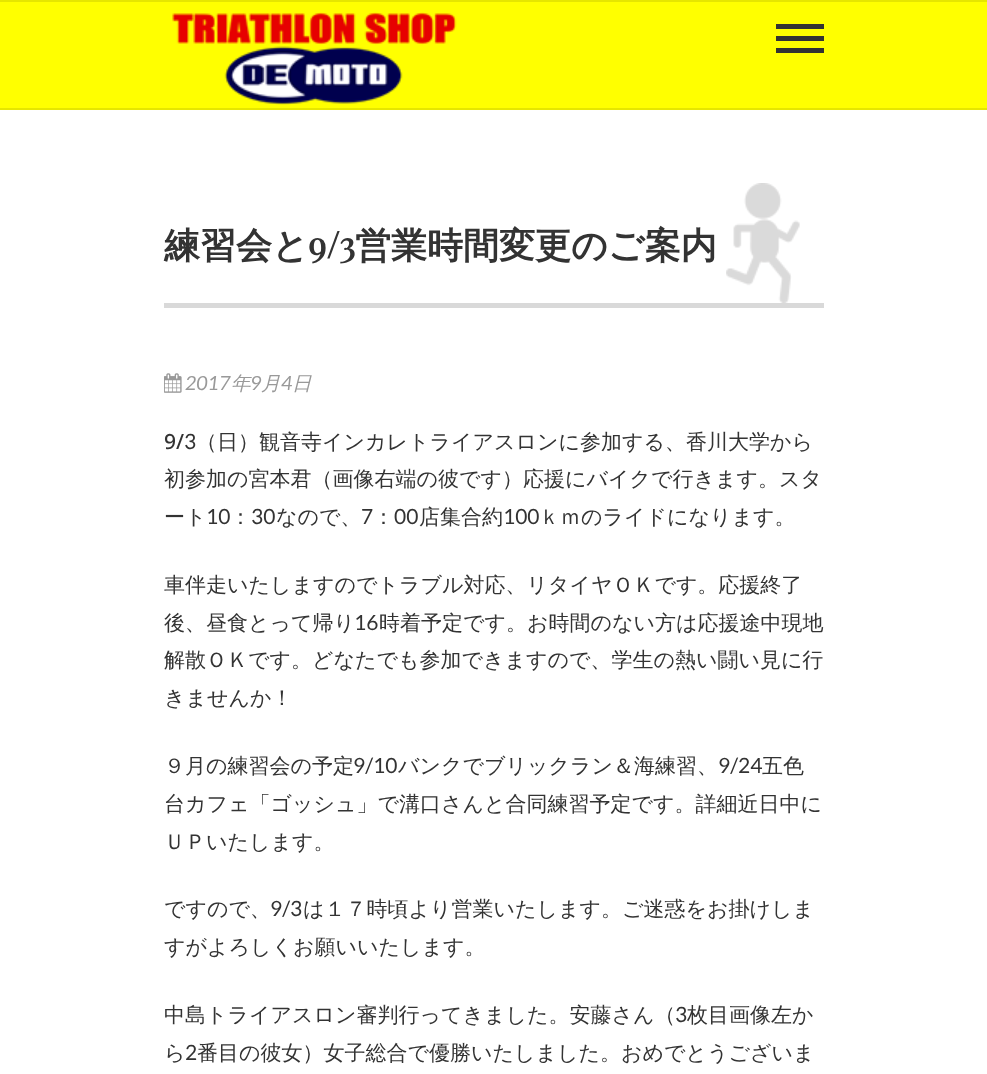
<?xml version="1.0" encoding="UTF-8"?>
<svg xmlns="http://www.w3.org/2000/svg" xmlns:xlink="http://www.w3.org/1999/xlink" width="987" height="1074">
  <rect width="100%" height="100%" fill="#ffffff" />
  <rect width="987" height="2" fill="#e6e600" />
  <rect y="2" width="987" height="106" fill="#ffff00" />
  <rect y="108" width="987" height="2" fill="#e6e600" />
  <image x="172" y="12" width="285" height="93" xlink:href="image1.png" />
  <rect x="776" y="24" width="48" height="5" fill="#333333" />
  <rect x="776" y="36" width="48" height="5" fill="#333333" />
  <rect x="776" y="48" width="48" height="5" fill="#333333" />
  <rect x="164" y="303" width="660" height="5" fill="#d9d9d9" />
  <image x="726" y="183" width="74" height="120" xlink:href="image2.png" />
  <image x="164" y="373" width="18" height="20" xlink:href="image3.png" />
  <text x="164" y="258" style="font-family: WenQuanYi Zen Hei; font-size: 36px; font-weight: bold; fill: #333333">練習会と</text>
  <text x="308" y="258" style="font-family: Playfair Display; font-size: 36px; font-weight: bold; fill: #333333">9/3</text>
  <text x="355" y="258" style="font-family: WenQuanYi Zen Hei; font-size: 36px; font-weight: bold; fill: #333333">営業時間変更のご案内</text>
  <text x="185" y="390" style="font-family: Lato; font-size: 19.5px; font-style: italic; fill: #999999">2017</text>
  <text x="231" y="390" style="font-family: WenQuanYi Zen Hei; font-size: 19.5px; font-weight: 500; font-style: italic; fill: #999999">年</text>
  <text x="250" y="390" style="font-family: Lato; font-size: 19.5px; font-style: italic; fill: #999999">9</text>
  <text x="261" y="390" style="font-family: WenQuanYi Zen Hei; font-size: 19.5px; font-weight: 500; font-style: italic; fill: #999999">月</text>
  <text x="281" y="390" style="font-family: Lato; font-size: 19.5px; font-style: italic; fill: #999999">4</text>
  <text x="292" y="390" style="font-family: WenQuanYi Zen Hei; font-size: 19.5px; font-weight: 500; font-style: italic; fill: #999999">日</text>
  <text x="164" y="449" style="font-family: Noto Sans; font-size: 21px; font-weight: 500; fill: #333333">9/</text>
  <text x="184" y="449" style="font-family: Lato; font-size: 21px; fill: #333333">3</text>
  <text x="196" y="449" style="font-family: WenQuanYi Zen Hei; font-size: 21px; font-weight: 500; fill: #333333">（日）観音寺インカレトライアスロンに参加する、香川大学から</text>
  <text x="164" y="486" style="font-family: WenQuanYi Zen Hei; font-size: 21px; font-weight: 500; fill: #333333">初参加の宮本君（画像右端の彼です）応援にバイクで行きます。スタ</text>
  <text x="164" y="524" style="font-family: WenQuanYi Zen Hei; font-size: 21px; font-weight: 500; fill: #333333">ート</text>
  <text x="206" y="524" style="font-family: Lato; font-size: 21px; fill: #333333">10</text>
  <text x="230" y="524" style="font-family: WenQuanYi Zen Hei; font-size: 21px; font-weight: 500; fill: #333333">：</text>
  <text x="251" y="524" style="font-family: Lato; font-size: 21px; fill: #333333">30</text>
  <text x="276" y="524" style="font-family: WenQuanYi Zen Hei; font-size: 21px; font-weight: 500; fill: #333333">なので、</text>
  <text x="361" y="524" style="font-family: Lato; font-size: 21px; fill: #333333">7</text>
  <text x="373" y="524" style="font-family: WenQuanYi Zen Hei; font-size: 21px; font-weight: 500; fill: #333333">：</text>
  <text x="394" y="524" style="font-family: Lato; font-size: 21px; fill: #333333">00</text>
  <text x="419" y="524" style="font-family: WenQuanYi Zen Hei; font-size: 21px; font-weight: 500; fill: #333333">店集合約</text>
  <text x="503" y="524" style="font-family: Lato; font-size: 21px; fill: #333333">100</text>
  <text x="539" y="524" style="font-family: WenQuanYi Zen Hei; font-size: 21px; font-weight: 500; fill: #333333">ｋｍのライドになります。</text>
  <text x="164" y="592" style="font-family: WenQuanYi Zen Hei; font-size: 21px; font-weight: 500; fill: #333333">車伴走いたしますのでトラブル対応、リタイヤＯＫです。応援終了</text>
  <text x="164" y="630" style="font-family: WenQuanYi Zen Hei; font-size: 21px; font-weight: 500; fill: #333333">後、昼食とって帰り</text>
  <text x="354" y="630" style="font-family: Lato; font-size: 21px; fill: #333333">16</text>
  <text x="379" y="630" style="font-family: WenQuanYi Zen Hei; font-size: 21px; font-weight: 500; fill: #333333">時着予定です。お時間のない方は応援途中現地</text>
  <text x="164" y="667" style="font-family: WenQuanYi Zen Hei; font-size: 21px; font-weight: 500; fill: #333333">解散ＯＫです。どなたでも参加できますので、学生の熱い闘い見に行</text>
  <text x="164" y="705" style="font-family: WenQuanYi Zen Hei; font-size: 21px; font-weight: 500; fill: #333333">きませんか！</text>
  <text x="164" y="773" style="font-family: WenQuanYi Zen Hei; font-size: 21px; font-weight: 500; fill: #333333">９月の練習会の予定</text>
  <text x="353" y="773" style="font-family: Lato; font-size: 21px; fill: #333333">9/10</text>
  <text x="398" y="773" style="font-family: WenQuanYi Zen Hei; font-size: 21px; font-weight: 500; fill: #333333">バンクでブリックラン＆海練習、</text>
  <text x="718" y="773" style="font-family: Lato; font-size: 21px; fill: #333333">9/24</text>
  <text x="762" y="773" style="font-family: WenQuanYi Zen Hei; font-size: 21px; font-weight: 500; fill: #333333">五色</text>
  <text x="164" y="811" style="font-family: WenQuanYi Zen Hei; font-size: 21px; font-weight: 500; fill: #333333">台カフェ「ゴッシュ」で溝口さんと合同練習予定です。詳細近日中に</text>
  <text x="164" y="849" style="font-family: WenQuanYi Zen Hei; font-size: 21px; font-weight: 500; fill: #333333">ＵＰいたします。</text>
  <text x="164" y="916" style="font-family: WenQuanYi Zen Hei; font-size: 21px; font-weight: 500; fill: #333333">ですので、</text>
  <text x="270" y="916" style="font-family: Lato; font-size: 21px; fill: #333333">9/3</text>
  <text x="303" y="916" style="font-family: WenQuanYi Zen Hei; font-size: 21px; font-weight: 500; fill: #333333">は１７時頃より営業いたします。ご迷惑をお掛けしま</text>
  <text x="164" y="954" style="font-family: WenQuanYi Zen Hei; font-size: 21px; font-weight: 500; fill: #333333">すがよろしくお願いいたします。</text>
  <text x="164" y="1022" style="font-family: WenQuanYi Zen Hei; font-size: 21px; font-weight: 500; fill: #333333">中島トライアスロン審判行ってきました。安藤さん（</text>
  <text x="675" y="1022" style="font-family: Lato; font-size: 21px; fill: #333333">3</text>
  <text x="687" y="1022" style="font-family: WenQuanYi Zen Hei; font-size: 21px; font-weight: 500; fill: #333333">枚目画像左か</text>
  <text x="164" y="1060" style="font-family: WenQuanYi Zen Hei; font-size: 21px; font-weight: 500; fill: #333333">ら</text>
  <text x="185" y="1060" style="font-family: Lato; font-size: 21px; fill: #333333">2</text>
  <text x="197" y="1060" style="font-family: WenQuanYi Zen Hei; font-size: 21px; font-weight: 500; fill: #333333">番目の彼女）女子総合で優勝いたしました。おめでとうございま</text>
</svg>
